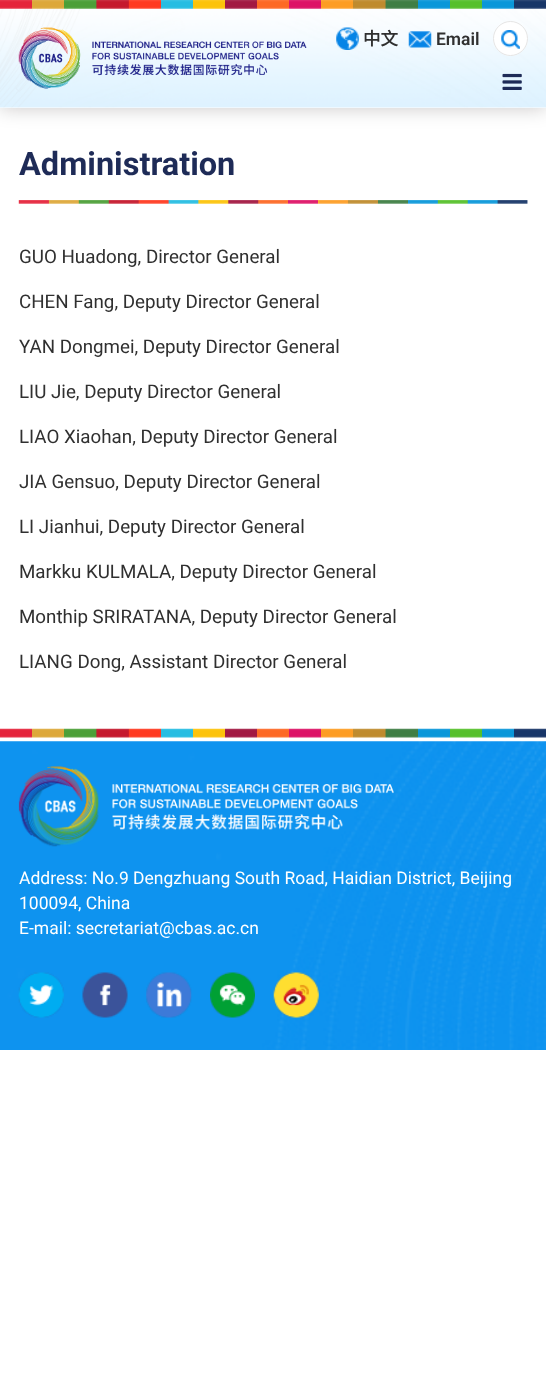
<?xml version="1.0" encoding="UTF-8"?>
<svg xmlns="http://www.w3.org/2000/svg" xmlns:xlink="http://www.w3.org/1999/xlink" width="546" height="1387">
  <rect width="100%" height="100%" fill="#ffffff" />
  <rect width="546" height="108" fill="#070002" fill-opacity="0.22" filter="blur(9.5px)" />
  <rect width="546" height="108" fill="#ffffff" />
  <image x="0" y="0" width="546" height="108" xlink:href="image1.png" />
  <image x="0" y="0" width="546" height="9" xlink:href="image2.png" />
  <image x="18" y="27" width="289" height="62" xlink:href="image3.png" />
  <image x="502" y="73" width="20" height="17" xlink:href="image4.png" />
  <image x="336" y="27" width="23" height="23" xlink:href="image5.png" />
  <image x="408" y="31" width="24" height="17" xlink:href="image6.png" />
  <circle cx="510.5" cy="38.5" r="17.5" fill="#ffffff" />
  <image x="501" y="30" width="19" height="19" xlink:href="image7.png" />
  <circle cx="510.5" cy="38.5" r="17" fill="none" stroke="#e5e5e5" />
  <image x="18" y="200" width="510" height="4" xlink:href="image8.png" />
  <image x="0" y="741" width="546" height="309" xlink:href="image9.png" />
  <image x="0" y="728" width="546" height="10" xlink:href="image10.png" />
  <image x="18" y="766" width="376" height="81" xlink:href="image11.png" />
  <image x="18" y="972" width="46" height="46" xlink:href="image12.png" />
  <image x="82" y="972" width="46" height="46" xlink:href="image13.png" />
  <image x="146" y="972" width="46" height="46" xlink:href="image14.png" />
  <image x="210" y="972" width="45" height="46" xlink:href="image15.png" />
  <image x="273" y="972" width="46" height="46" xlink:href="image16.png" />
  <text x="363" y="45" style="font-family: Noto Sans CJK SC; font-size: 17.5px; font-weight: bold; fill: #303030">中文</text>
  <text x="436" y="45" style="font-family: Roboto; font-size: 17.5px; font-weight: 600; fill: #303030">Email</text>
  <text x="19" y="175" style="font-family: Roboto; font-size: 32.5px; font-weight: bold; fill: #1e2b57">Administration</text>
  <text x="19" y="263" style="font-family: Roboto; font-size: 18.75px; fill: #303030">GUO Huadong, Director General</text>
  <text x="19" y="308" style="font-family: Roboto; font-size: 18.75px; fill: #303030">CHEN Fang, Deputy Director General</text>
  <text x="19" y="353" style="font-family: Roboto; font-size: 18.75px; fill: #303030">YAN Dongmei, Deputy Director General</text>
  <text x="19" y="398" style="font-family: Roboto; font-size: 18.75px; fill: #303030">LIU Jie, Deputy Director General</text>
  <text x="19" y="443" style="font-family: Roboto; font-size: 18.75px; fill: #303030">LIAO Xiaohan, Deputy Director General</text>
  <text x="19" y="488" style="font-family: Roboto; font-size: 18.75px; fill: #303030">JIA Gensuo, Deputy Director General</text>
  <text x="19" y="533" style="font-family: Roboto; font-size: 18.75px; fill: #303030">LI Jianhui, Deputy Director General</text>
  <text x="19" y="578" style="font-family: Roboto; font-size: 18.75px; fill: #303030">Markku KULMALA, Deputy Director General</text>
  <text x="19" y="623" style="font-family: Roboto; font-size: 18.75px; fill: #303030">Monthip SRIRATANA, Deputy Director General</text>
  <text x="19" y="668" style="font-family: Roboto; font-size: 18.75px; fill: #303030">LIANG Dong, Assistant Director General</text>
  <text x="19" y="884" style="font-family: Roboto; font-size: 17.5px; fill: #ffffff">Address: No.9 Dengzhuang South Road, Haidian District, Beijing</text>
  <text x="19" y="909" style="font-family: Roboto; font-size: 17.5px; fill: #ffffff">100094, China</text>
  <text x="19" y="934" style="font-family: Roboto; font-size: 17.5px; fill: #ffffff">E-mail: secretariat@cbas.ac.cn</text>
</svg>
